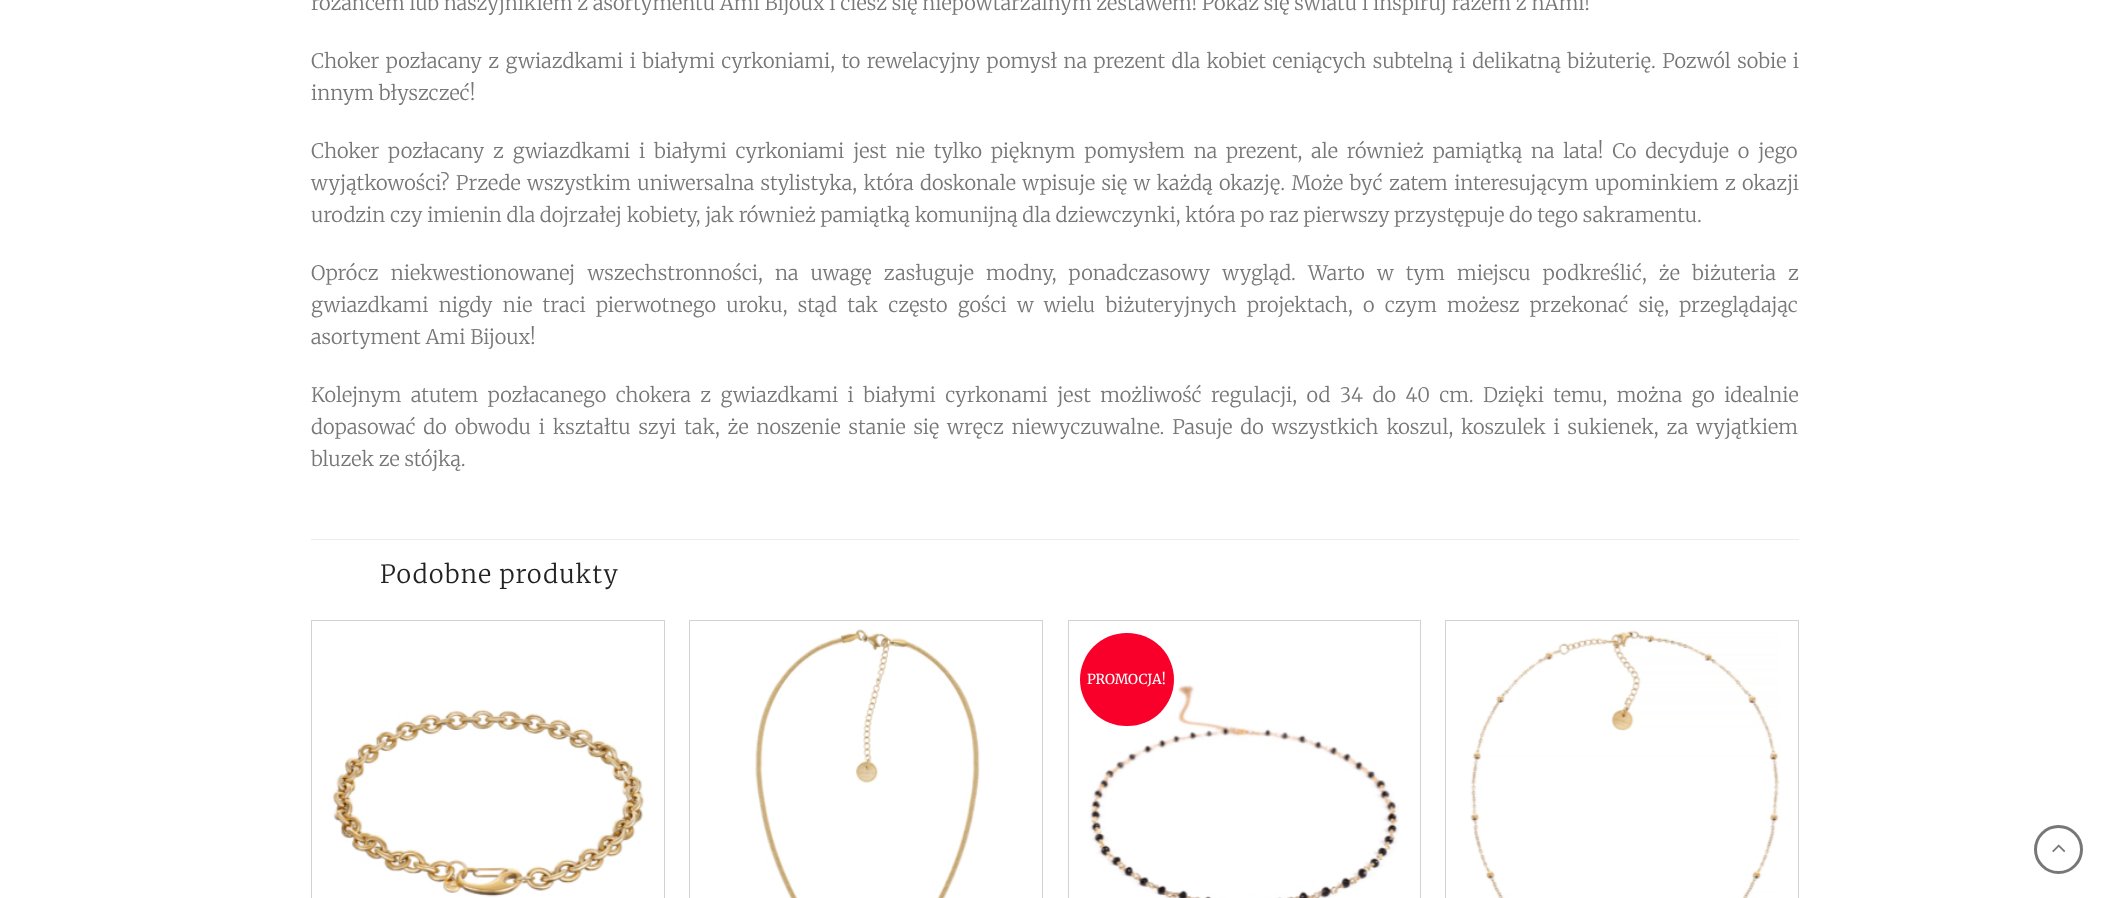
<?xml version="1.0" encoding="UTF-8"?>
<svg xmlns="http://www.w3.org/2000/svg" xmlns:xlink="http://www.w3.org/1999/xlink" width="2109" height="898">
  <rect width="100%" height="100%" fill="#ffffff" />
  <rect x="311" y="539" width="1488" height="1" fill="#ececec" />
  <rect x="311.5" y="620.5" width="353" height="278" fill="none" stroke="#d2d2d2" />
  <image x="332" y="709" width="313" height="188" xlink:href="image1.png" />
  <rect x="689.5" y="620.5" width="353" height="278" fill="none" stroke="#d2d2d2" />
  <image x="755" y="629" width="225" height="269" xlink:href="image2.png" />
  <rect x="1068.5" y="620.5" width="352" height="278" fill="none" stroke="#d2d2d2" />
  <image x="1089" y="685" width="310" height="213" xlink:href="image3.png" />
  <rect x="1080" y="633" width="94" height="93" rx="46.5" fill="#f9002b" />
  <rect x="1445.5" y="620.5" width="353" height="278" fill="none" stroke="#d2d2d2" />
  <image x="1470" y="630" width="310" height="268" xlink:href="image4.png" />
  <circle cx="2058.5" cy="849.5" r="23" fill="none" stroke="#777777" stroke-width="3" />
  <image x="2052" y="844" width="14" height="9" xlink:href="image5.png" />
  <text x="311" y="10" style="font-family: Merriweather; font-size: 20px; font-weight: 300; fill: #777777">różańcem lub naszyjnikiem z asortymentu Ami Bijoux i ciesz się niepowtarzalnym zestawem! Pokaż się światu i inspiruj razem z nAmi!</text>
  <text x="311" y="68" word-spacing="1.75" style="font-family: Merriweather; font-size: 20px; font-weight: 300; fill: #777777">Choker pozłacany z gwiazdkami i białymi cyrkoniami, to rewelacyjny pomysł na prezent dla kobiet ceniących subtelną i delikatną biżuterię. Pozwól sobie i</text>
  <text x="311" y="100" style="font-family: Merriweather; font-size: 20px; font-weight: 300; fill: #777777">innym błyszczeć!</text>
  <text x="311" y="158" word-spacing="4.1" style="font-family: Merriweather; font-size: 20px; font-weight: 300; fill: #777777">Choker pozłacany z gwiazdkami i białymi cyrkoniami jest nie tylko pięknym pomysłem na prezent, ale również pamiątką na lata! Co decyduje o jego</text>
  <text x="311" y="190" word-spacing="1.6" style="font-family: Merriweather; font-size: 20px; font-weight: 300; fill: #777777">wyjątkowości? Przede wszystkim uniwersalna stylistyka, która doskonale wpisuje się w każdą okazję. Może być zatem interesującym upominkiem z okazji</text>
  <text x="311" y="222" style="font-family: Merriweather; font-size: 20px; font-weight: 300; fill: #777777">urodzin czy imienin dla dojrzałej kobiety, jak również pamiątką komunijną dla dziewczynki, która po raz pierwszy przystępuje do tego sakramentu.</text>
  <text x="311" y="280" word-spacing="7.4" style="font-family: Merriweather; font-size: 20px; font-weight: 300; fill: #777777">Oprócz niekwestionowanej wszechstronności, na uwagę zasługuje modny, ponadczasowy wygląd. Warto w tym miejscu podkreślić, że biżuteria z</text>
  <text x="311" y="312" word-spacing="5.5" style="font-family: Merriweather; font-size: 20px; font-weight: 300; fill: #777777">gwiazdkami nigdy nie traci pierwotnego uroku, stąd tak często gości w wielu biżuteryjnych projektach, o czym możesz przekonać się, przeglądając</text>
  <text x="311" y="344" style="font-family: Merriweather; font-size: 20px; font-weight: 300; fill: #777777">asortyment Ami Bijoux!</text>
  <text x="311" y="402" word-spacing="4.7" style="font-family: Merriweather; font-size: 20px; font-weight: 300; fill: #777777">Kolejnym atutem pozłacanego chokera z gwiazdkami i białymi cyrkonami jest możliwość regulacji, od 34 do 40 cm. Dzięki temu, można go idealnie</text>
  <text x="311" y="434" word-spacing="3.1" style="font-family: Merriweather; font-size: 20px; font-weight: 300; fill: #777777">dopasować do obwodu i kształtu szyi tak, że noszenie stanie się wręcz niewyczuwalne. Pasuje do wszystkich koszul, koszulek i sukienek, za wyjątkiem</text>
  <text x="311" y="466" style="font-family: Merriweather; font-size: 20px; font-weight: 300; fill: #777777">bluzek ze stójką.</text>
  <text x="380" y="583" style="font-family: Merriweather; font-size: 25px; font-weight: 300; letter-spacing: 1.25px; fill: #222222">Podobne produkty</text>
  <text x="1087" y="684" style="font-family: Merriweather; font-size: 13.75px; fill: #ffffff">PROMOCJA!</text>
</svg>
